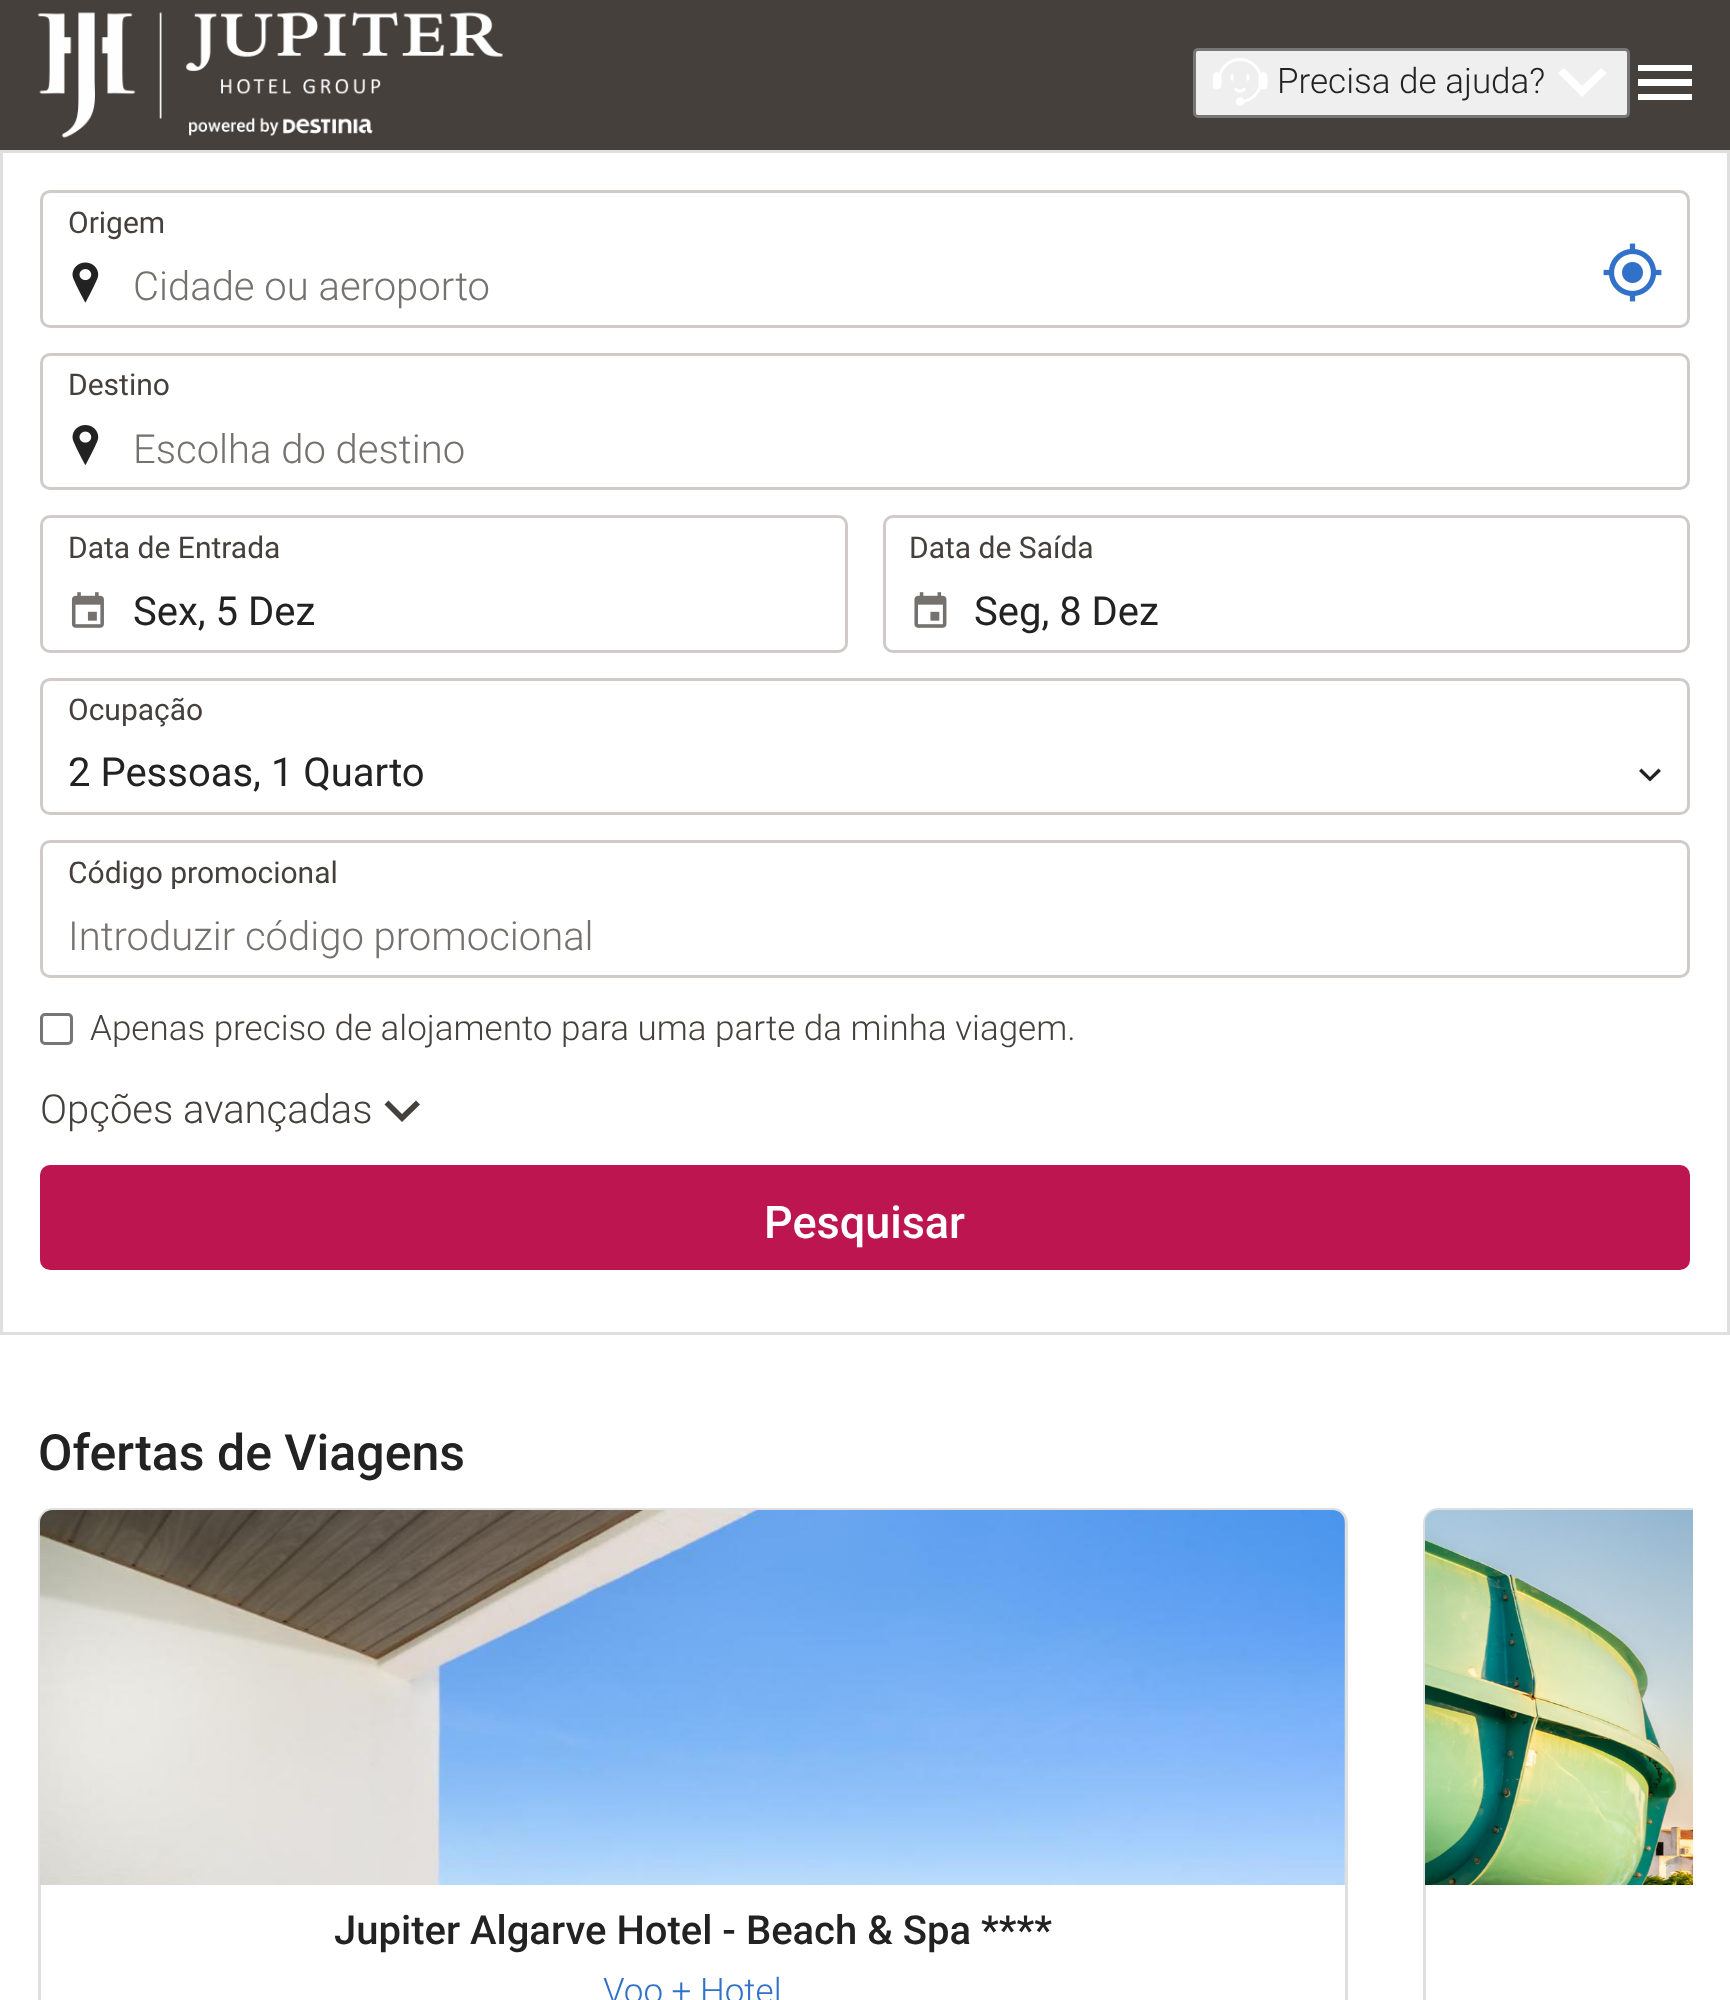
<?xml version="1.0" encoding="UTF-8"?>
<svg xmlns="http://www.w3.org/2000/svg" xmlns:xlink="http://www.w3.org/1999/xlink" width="1730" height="2000">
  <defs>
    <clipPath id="clip1"><rect x="38" y="1508" width="1655" height="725" /></clipPath>
  </defs>
  <rect width="100%" height="100%" fill="#ffffff" />
  <rect width="1730" height="150" fill="#46403c" />
  <image x="37" y="12" width="466" height="126" xlink:href="image1.png" />
  <rect x="1194.5" y="49.5" width="434" height="67" rx="3.5" fill="#efefef" stroke="#767676" stroke-width="3" />
  <image x="1213" y="58" width="55" height="48" xlink:href="image2.png" />
  <path d="M 1564 68 l 18 18 l 19 -18 l 6 5 l -25 24 l -24 -24 z" fill="#ffffff" fill-rule="evenodd" />
  <path d="M 1638 65 h 54 v 6 h -54 z m 0 14 h 54 v 7 h -54 z m 0 15 h 54 v 6 h -54 z" fill="#ffffff" />
  <rect x="1.5" y="151.5" width="1727" height="1182" fill="none" stroke="#dfdfdf" stroke-width="3" />
  <image x="72" y="262" width="27" height="41" xlink:href="image3.png" />
  <rect x="41.5" y="191.5" width="1647" height="135" rx="8.5" fill="none" stroke="#d0cbc9" stroke-width="3" />
  <image x="1603" y="243" width="59" height="59" xlink:href="image4.png" />
  <image x="72" y="425" width="27" height="40" xlink:href="image5.png" />
  <rect x="41.5" y="354.5" width="1647" height="134" rx="8.5" fill="none" stroke="#d0cbc9" stroke-width="3" />
  <image x="71" y="592" width="33" height="36" xlink:href="image6.png" />
  <rect x="41.5" y="516.5" width="805" height="135" rx="8.5" fill="none" stroke="#d0cbc9" stroke-width="3" />
  <image x="914" y="592" width="33" height="36" xlink:href="image7.png" />
  <rect x="884.5" y="516.5" width="804" height="135" rx="8.5" fill="none" stroke="#d0cbc9" stroke-width="3" />
  <rect x="41.5" y="679.5" width="1647" height="134" rx="8.5" fill="none" stroke="#d0cbc9" stroke-width="3" />
  <path d="M 1641.5 768.5 l 8.5 8.5 l 8.5 -8.5 l 2.5 2.5 l -11 10.5 l -11 -10.5 z" fill="#222222" fill-rule="evenodd" />
  <rect x="41.5" y="841.5" width="1647" height="135" rx="8.5" fill="none" stroke="#d0cbc9" stroke-width="3" />
  <rect x="41.5" y="1014.5" width="30" height="29" rx="3.5" fill="none" stroke="#767676" stroke-width="3" />
  <path d="M 388.5 1100.5 l 13.5 13.5 l 14 -13.5 l 4 4 l -18 17.5 l -17.5 -17.5 z" fill="#46403c" fill-rule="evenodd" />
  <rect x="40" y="1165" width="1650" height="105" rx="10" fill="#bd1550" />
  <rect x="39.5" y="1509.5" width="1307" height="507" rx="13.5" fill="none" stroke="#dfdfdf" stroke-width="3" />
  <image x="40" y="1510" width="1305" height="375" xlink:href="image8.png" />
  <g clip-path="url(#clip1)">
    <rect x="1424.5" y="1509.5" width="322" height="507" rx="13.5" fill="none" stroke="#dfdfdf" stroke-width="3" />
  </g>
  <image x="1425" y="1510" width="268" height="375" xlink:href="image9.png" />
  <text x="1277" y="93" style="font-family: Roboto; font-size: 35px; font-weight: 300; fill: #222222">Precisa de ajuda?</text>
  <text x="68" y="233" style="font-family: Roboto; font-size: 30px; fill: #46403c">Origem</text>
  <text x="133" y="300" style="font-family: Roboto; font-size: 40px; font-weight: 300; fill: #74716e">Cidade ou aeroporto</text>
  <text x="68" y="395" style="font-family: Roboto; font-size: 30px; fill: #46403c">Destino</text>
  <text x="133" y="463" style="font-family: Roboto; font-size: 40px; font-weight: 300; fill: #74716e">Escolha do destino</text>
  <text x="68" y="558" style="font-family: Roboto; font-size: 30px; fill: #46403c">Data de Entrada</text>
  <text x="133" y="625" style="font-family: Roboto; font-size: 40px; fill: #222222">Sex, 5 Dez</text>
  <text x="909" y="558" style="font-family: Roboto; font-size: 30px; fill: #46403c">Data de Saída</text>
  <text x="974" y="625" style="font-family: Roboto; font-size: 40px; fill: #222222">Seg, 8 Dez</text>
  <text x="68" y="720" style="font-family: Roboto; font-size: 30px; fill: #46403c">Ocupação</text>
  <text x="68" y="786" style="font-family: Roboto; font-size: 40px; fill: #222222">2 Pessoas, 1 Quarto</text>
  <text x="68" y="883" style="font-family: Roboto; font-size: 30px; fill: #46403c">Código promocional</text>
  <text x="68" y="950" style="font-family: Roboto; font-size: 40px; font-weight: 300; fill: #74716e">Introduzir código promocional</text>
  <text x="90" y="1040" style="font-family: Roboto; font-size: 35px; font-weight: 300; fill: #46403c">Apenas preciso de alojamento para uma parte da minha viagem.</text>
  <text x="40" y="1123" style="font-family: Roboto; font-size: 40px; font-weight: 300; fill: #46403c">Opções avançadas</text>
  <text x="764" y="1238" style="font-family: Roboto; font-size: 45px; font-weight: 500; fill: #ffffff">Pesquisar</text>
  <text x="38" y="1470" style="font-family: Roboto; font-size: 50px; font-weight: 500; fill: #222222">Ofertas de Viagens</text>
  <text x="334" y="1944" style="font-family: Roboto; font-size: 40px; font-weight: 500; fill: #222222">Jupiter Algarve Hotel - Beach &amp; Spa ****</text>
  <text x="603" y="2003" style="font-family: Roboto; font-size: 35px; font-weight: 300; fill: #3171c9">Voo + Hotel</text>
</svg>
